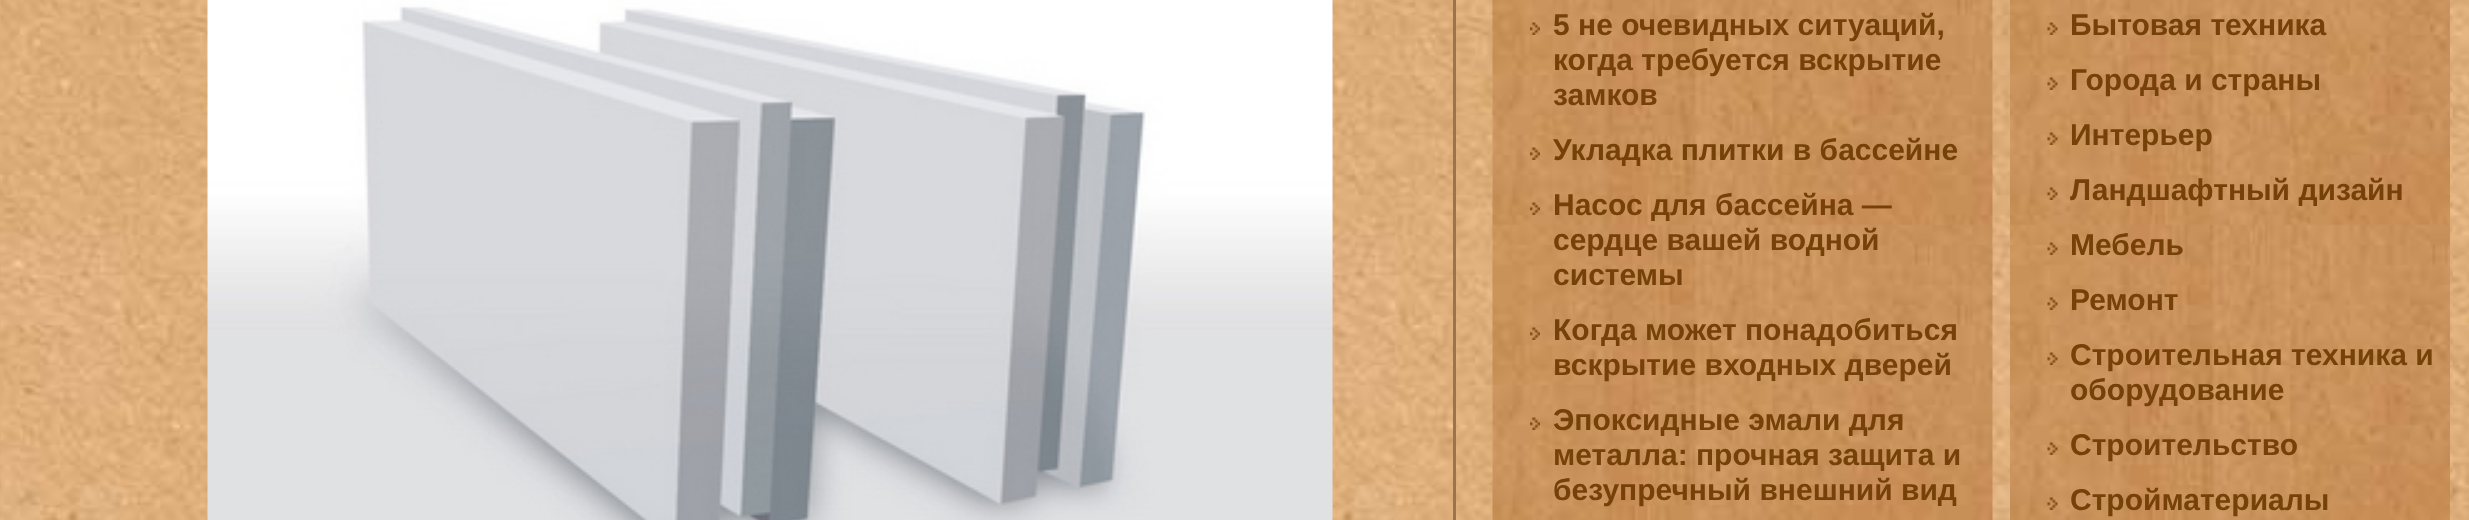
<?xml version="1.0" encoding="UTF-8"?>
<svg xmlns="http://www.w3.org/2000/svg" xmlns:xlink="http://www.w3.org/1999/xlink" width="2469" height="520">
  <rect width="100%" height="100%" fill="#ffffff" />
  <image x="0" y="0" width="2469" height="520" xlink:href="image1.png" />
  <rect x="1453" width="3" height="520" fill="#9a744a" />
  <image x="207" y="0" width="1126" height="520" xlink:href="image2.png" />
  <image x="1492" y="0" width="501" height="520" xlink:href="image3.png" />
  <image x="1530" y="22" width="10" height="13" xlink:href="image4.png" />
  <image x="1530" y="147" width="10" height="13" xlink:href="image5.png" />
  <image x="1530" y="202" width="10" height="13" xlink:href="image6.png" />
  <image x="1530" y="327" width="10" height="13" xlink:href="image7.png" />
  <image x="1530" y="417" width="10" height="13" xlink:href="image8.png" />
  <image x="2010" y="0" width="440" height="520" xlink:href="image9.png" />
  <image x="2047" y="22" width="11" height="13" xlink:href="image10.png" />
  <image x="2047" y="77" width="11" height="13" xlink:href="image11.png" />
  <image x="2047" y="132" width="11" height="13" xlink:href="image12.png" />
  <image x="2047" y="187" width="11" height="13" xlink:href="image13.png" />
  <image x="2047" y="242" width="11" height="13" xlink:href="image14.png" />
  <image x="2047" y="297" width="11" height="13" xlink:href="image15.png" />
  <image x="2047" y="352" width="11" height="13" xlink:href="image16.png" />
  <image x="2047" y="442" width="11" height="13" xlink:href="image12.png" />
  <image x="2047" y="497" width="11" height="13" xlink:href="image13.png" />
  <text x="1553" y="35" style="font-family: Liberation Sans; font-size: 30px; font-weight: bold; fill: #754108">5 не очевидных ситуаций,</text>
  <text x="1553" y="70" style="font-family: Liberation Sans; font-size: 30px; font-weight: bold; fill: #754108">когда требуется вскрытие</text>
  <text x="1553" y="105" style="font-family: Liberation Sans; font-size: 30px; font-weight: bold; fill: #754108">замков</text>
  <text x="1553" y="160" style="font-family: Liberation Sans; font-size: 30px; font-weight: bold; fill: #754108">Укладка плитки в бассейне</text>
  <text x="1553" y="215" style="font-family: Liberation Sans; font-size: 30px; font-weight: bold; fill: #754108">Насос для бассейна —</text>
  <text x="1553" y="250" style="font-family: Liberation Sans; font-size: 30px; font-weight: bold; fill: #754108">сердце вашей водной</text>
  <text x="1553" y="285" style="font-family: Liberation Sans; font-size: 30px; font-weight: bold; fill: #754108">системы</text>
  <text x="1553" y="340" style="font-family: Liberation Sans; font-size: 30px; font-weight: bold; fill: #754108">Когда может понадобиться</text>
  <text x="1553" y="375" style="font-family: Liberation Sans; font-size: 30px; font-weight: bold; fill: #754108">вскрытие входных дверей</text>
  <text x="1553" y="430" style="font-family: Liberation Sans; font-size: 30px; font-weight: bold; fill: #754108">Эпоксидные эмали для</text>
  <text x="1553" y="465" style="font-family: Liberation Sans; font-size: 30px; font-weight: bold; fill: #754108">металла: прочная защита и</text>
  <text x="1553" y="500" style="font-family: Liberation Sans; font-size: 30px; font-weight: bold; fill: #754108">безупречный внешний вид</text>
  <text x="2070" y="35" style="font-family: Liberation Sans; font-size: 30px; font-weight: bold; fill: #754108">Бытовая техника</text>
  <text x="2070" y="90" style="font-family: Liberation Sans; font-size: 30px; font-weight: bold; fill: #754108">Города и страны</text>
  <text x="2070" y="145" style="font-family: Liberation Sans; font-size: 30px; font-weight: bold; fill: #754108">Интерьер</text>
  <text x="2070" y="200" style="font-family: Liberation Sans; font-size: 30px; font-weight: bold; fill: #754108">Ландшафтный дизайн</text>
  <text x="2070" y="255" style="font-family: Liberation Sans; font-size: 30px; font-weight: bold; fill: #754108">Мебель</text>
  <text x="2070" y="310" style="font-family: Liberation Sans; font-size: 30px; font-weight: bold; fill: #754108">Ремонт</text>
  <text x="2070" y="365" style="font-family: Liberation Sans; font-size: 30px; font-weight: bold; fill: #754108">Строительная техника и</text>
  <text x="2070" y="400" style="font-family: Liberation Sans; font-size: 30px; font-weight: bold; fill: #754108">оборудование</text>
  <text x="2070" y="455" style="font-family: Liberation Sans; font-size: 30px; font-weight: bold; fill: #754108">Строительство</text>
  <text x="2070" y="510" style="font-family: Liberation Sans; font-size: 30px; font-weight: bold; fill: #754108">Стройматериалы</text>
</svg>
